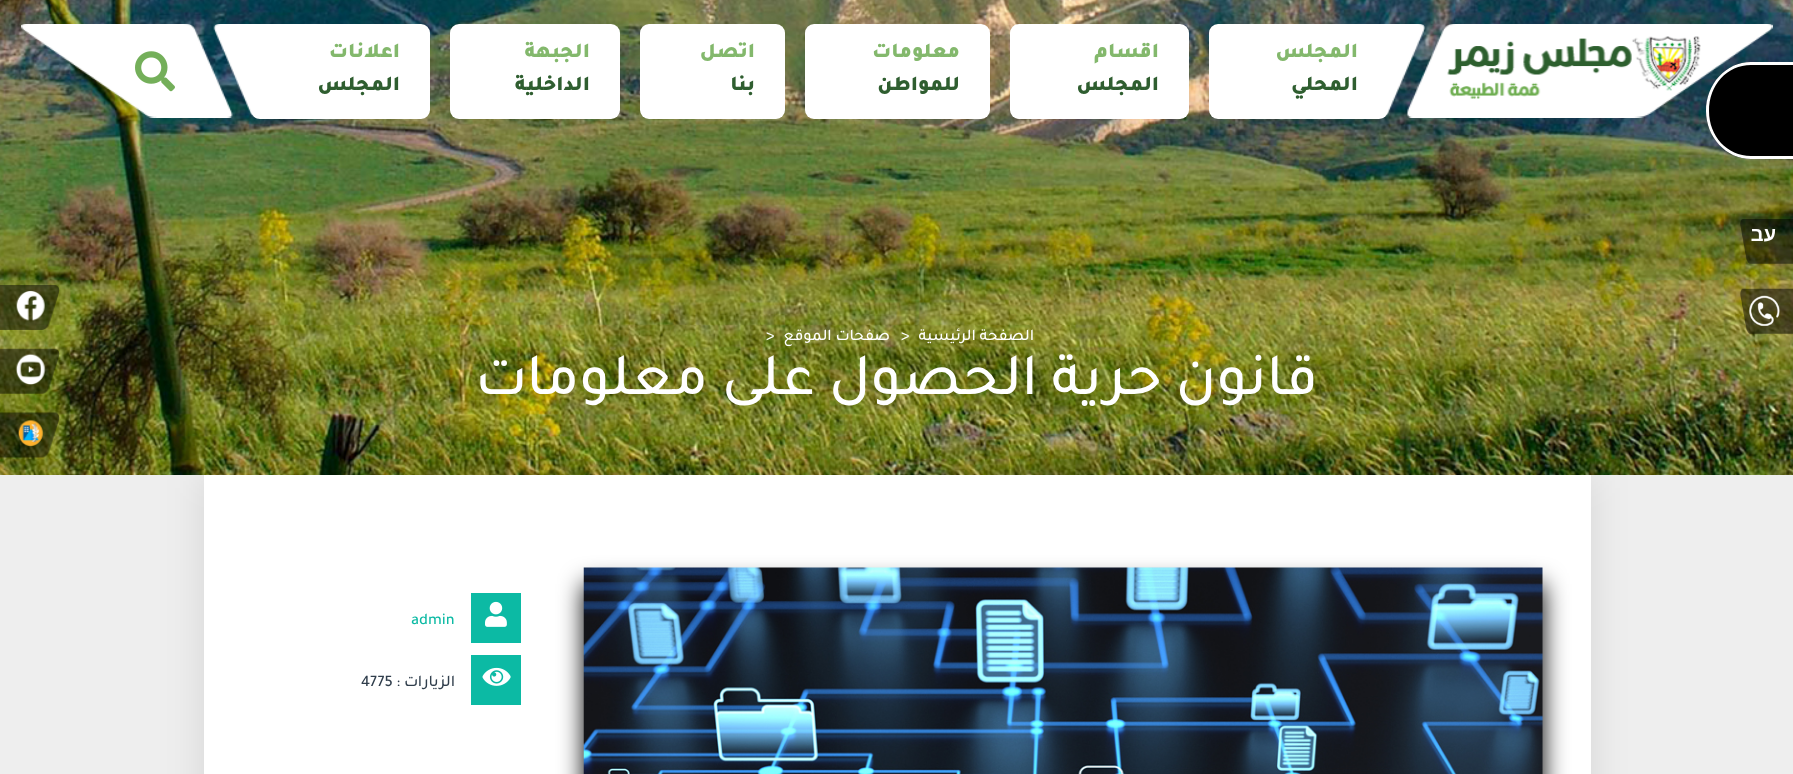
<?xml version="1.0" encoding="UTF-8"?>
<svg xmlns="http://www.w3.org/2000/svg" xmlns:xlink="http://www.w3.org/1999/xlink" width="1793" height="774">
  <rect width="100%" height="100%" fill="#eeeeee" />
  <image x="0" y="0" width="1793" height="475" xlink:href="image13.png" />
  <image x="21" y="24" width="1752" height="94" xlink:href="image1.png" />
  <path d="M 1751 62 h 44 v 97 h -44 c -25 0 -45 -22 -45 -48 c 0 -27 20 -49 45 -49 z" fill="#000000" />
  <path d="M 1751 62 h 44 v 97 h -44 c -25 0 -45 -22 -45 -48 c 0 -27 20 -49 45 -49 z m 0 3 h 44 v 91 h -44 c -24 0 -42 -20 -42 -45 c 0 -26 18 -46 42 -46 z" fill="#ffffff" fill-rule="evenodd" />
  <image x="1447" y="36" width="254" height="63" xlink:href="image2.png" />
  <rect x="1209" y="24" width="179" height="95" rx="9" fill="#ffffff" />
  <rect x="1010" y="24" width="179" height="95" rx="9" fill="#ffffff" />
  <rect x="805" y="24" width="185" height="95" rx="9" fill="#ffffff" />
  <rect x="640" y="24" width="145" height="95" rx="9" fill="#ffffff" />
  <rect x="450" y="24" width="170" height="95" rx="9" fill="#ffffff" />
  <rect x="251" y="24" width="179" height="95" rx="9" fill="#ffffff" />
  <image x="135" y="51" width="40" height="41" xlink:href="image3.png" />
  <image x="1740" y="219" width="53" height="45" xlink:href="image4.png" />
  <image x="1740" y="288" width="53" height="46" xlink:href="image5.png" />
  <image x="1748" y="295" width="32" height="31" xlink:href="image6.png" />
  <image x="0" y="285" width="60" height="45" xlink:href="image7.png" />
  <image x="16" y="290" width="29" height="31" xlink:href="image8.png" />
  <image x="0" y="348" width="60" height="46" xlink:href="image9.png" />
  <image x="15" y="353" width="31" height="32" xlink:href="image10.png" />
  <image x="0" y="412" width="60" height="46" xlink:href="image11.png" />
  <image x="18" y="419" width="26" height="28" xlink:href="image12.png" />
  <rect x="204" y="475" width="1387" height="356" fill="#000000" fill-opacity="0.1" filter="blur(19px)" />
  <rect x="204" y="475" width="1387" height="299" fill="#ffffff" />
  <rect x="584" y="584" width="959" height="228" fill="#000000" filter="blur(12.5px)" />
  <image x="583" y="567" width="960" height="207" xlink:href="image14.png" />
  <rect x="471" y="593" width="50" height="50" fill="#0cbaa4" />
  <image x="485" y="601" width="22" height="26" xlink:href="image15.png" />
  <rect x="471" y="655" width="50" height="50" fill="#0cbaa4" />
  <image x="482" y="667" width="29" height="19" xlink:href="image16.png" />
  <text x="1358" y="57" style="font-family: Tajawal; font-size: 21px; font-weight: 900; direction: rtl; fill: #83b86c">المجلس</text>
  <text x="1358" y="90" style="font-family: Tajawal; font-size: 21px; font-weight: 900; direction: rtl; fill: #2f5e30">المحلي</text>
  <text x="1159" y="57" style="font-family: Tajawal; font-size: 21px; font-weight: 900; direction: rtl; fill: #83b86c">اقسام</text>
  <text x="1159" y="90" style="font-family: Tajawal; font-size: 21px; font-weight: 900; direction: rtl; fill: #2f5e30">المجلس</text>
  <text x="960" y="57" style="font-family: Tajawal; font-size: 21px; font-weight: 900; direction: rtl; fill: #83b86c">معلومات</text>
  <text x="960" y="90" style="font-family: Tajawal; font-size: 21px; font-weight: 900; direction: rtl; fill: #2f5e30">للمواطن</text>
  <text x="755" y="57" style="font-family: Tajawal; font-size: 21px; font-weight: 900; direction: rtl; fill: #83b86c">اتصل</text>
  <text x="755" y="90" style="font-family: Tajawal; font-size: 21px; font-weight: 900; direction: rtl; fill: #2f5e30">بنا</text>
  <text x="590" y="57" style="font-family: Tajawal; font-size: 21px; font-weight: 900; direction: rtl; fill: #83b86c">الجبهة</text>
  <text x="590" y="90" style="font-family: Tajawal; font-size: 21px; font-weight: 900; direction: rtl; fill: #2f5e30">الداخلية</text>
  <text x="400" y="57" style="font-family: Tajawal; font-size: 21px; font-weight: 900; direction: rtl; fill: #83b86c">اعلانات</text>
  <text x="400" y="90" style="font-family: Tajawal; font-size: 21px; font-weight: 900; direction: rtl; fill: #2f5e30">المجلس</text>
  <text x="1776" y="241" style="font-family: Liberation Sans; font-size: 20px; font-weight: bold; direction: rtl; fill: #ffffff">עב</text>
  <text x="1034" y="340" style="font-family: Tajawal; font-size: 16.25px; font-weight: 500; direction: rtl; fill: #ffffff">الصفحة الرئيسية</text>
  <text x="901" y="340" style="font-family: Tajawal; font-size: 16.25px; font-weight: 500; fill: #ffffff">&gt;</text>
  <text x="890" y="340" style="font-family: Tajawal; font-size: 16.25px; font-weight: 500; direction: rtl; fill: #ffffff">صفحات الموقع</text>
  <text x="766" y="340" style="font-family: Tajawal; font-size: 16.25px; font-weight: 500; fill: #ffffff">&gt;</text>
  <text x="1318" y="394" style="font-family: Tajawal; font-size: 60px; font-weight: 500; direction: rtl; fill: #ffffff">قانون حرية الحصول على معلومات</text>
  <text x="411" y="624" style="font-family: Tajawal; font-size: 16.25px; font-weight: 500; fill: #0cbaa4">admin</text>
  <text x="455" y="686" style="font-family: Tajawal; font-size: 16.25px; font-weight: 500; direction: rtl; fill: #303e4c">الزيارات :</text>
  <text x="361" y="686" style="font-family: Tajawal; font-size: 16.25px; font-weight: 500; fill: #303e4c">4775</text>
</svg>
